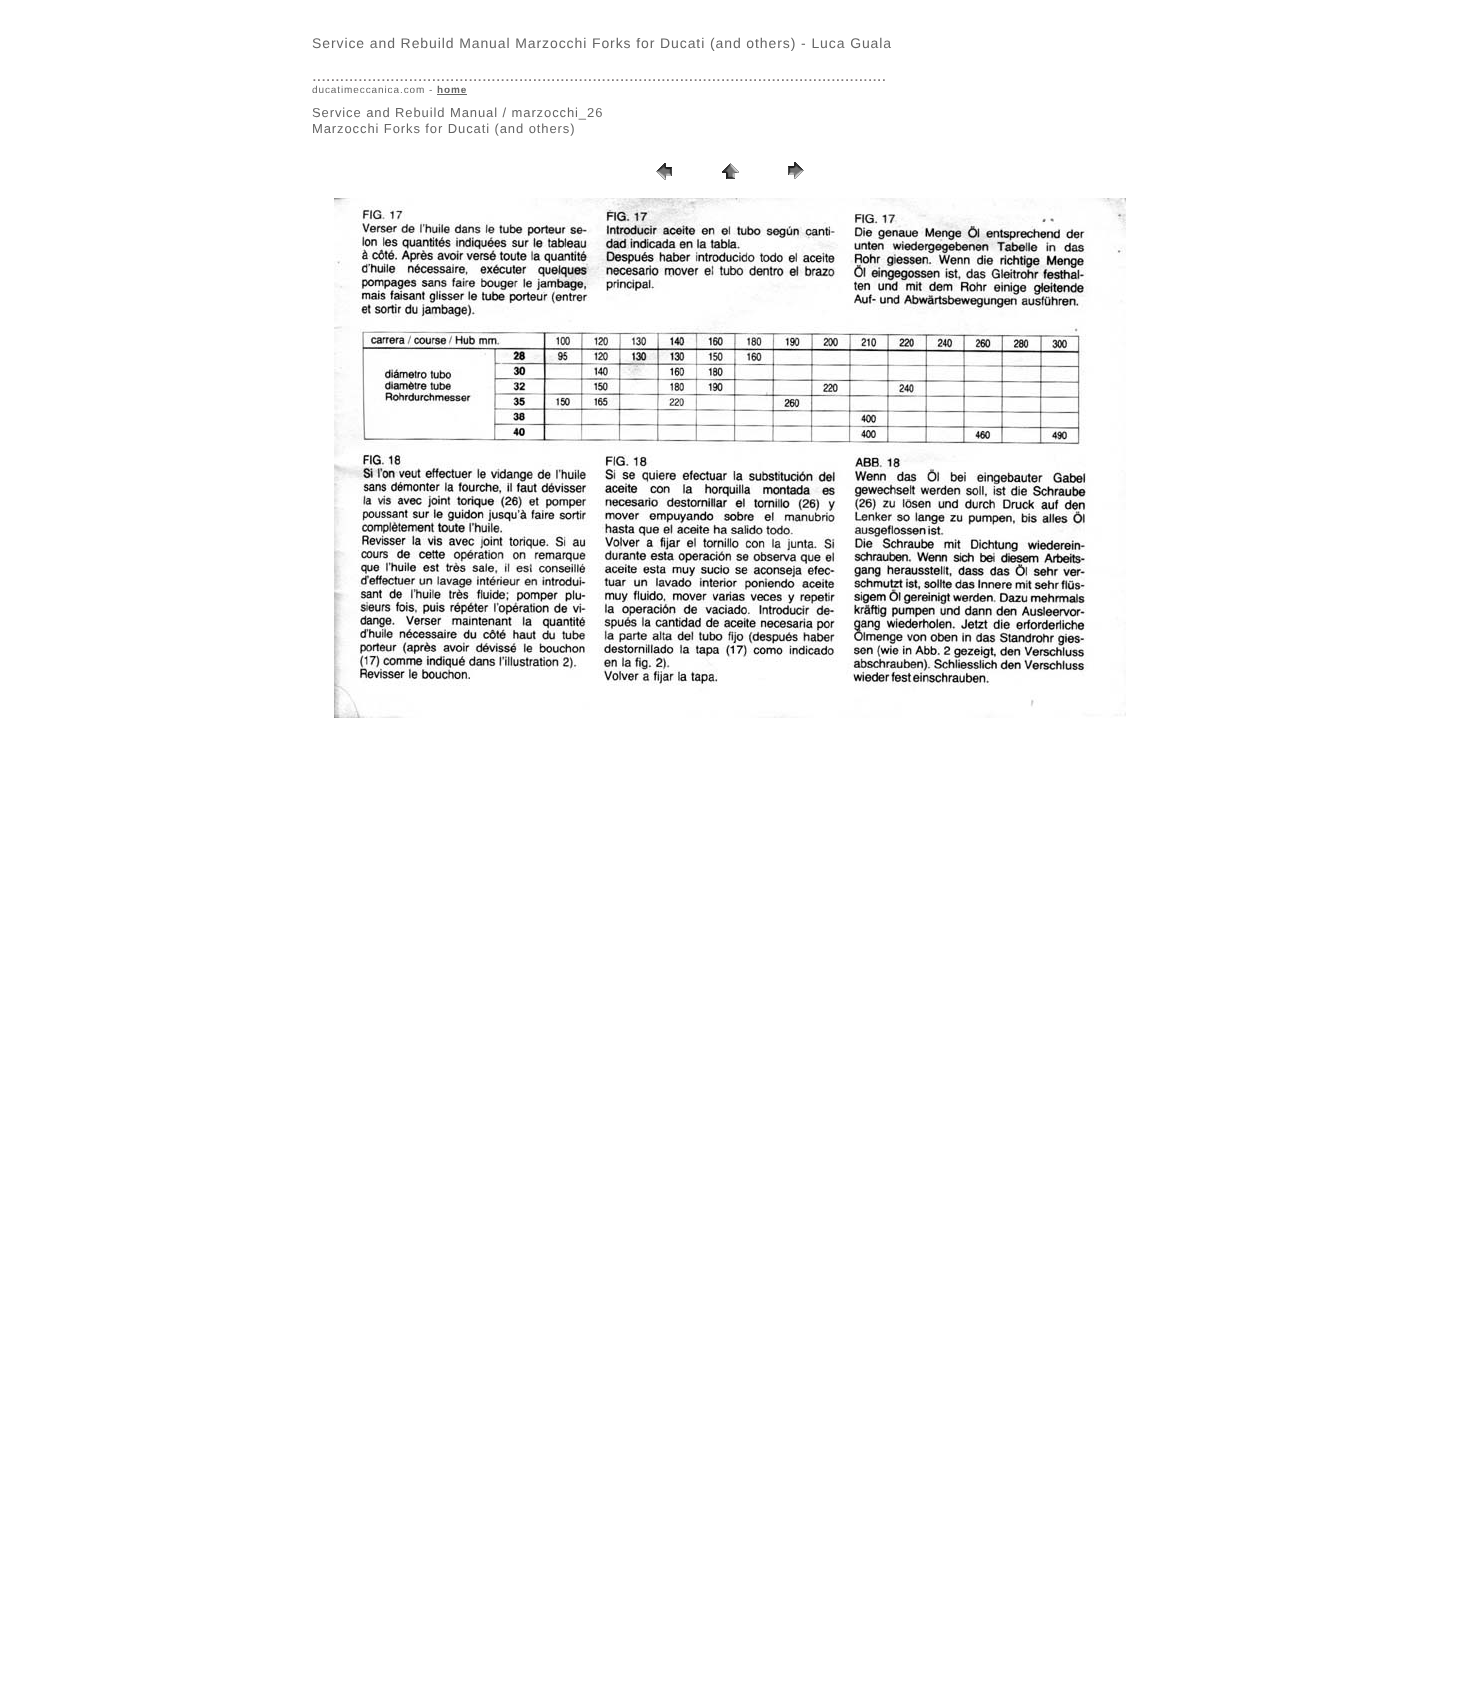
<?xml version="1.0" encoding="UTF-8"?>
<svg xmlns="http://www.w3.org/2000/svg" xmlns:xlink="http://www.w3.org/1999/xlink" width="1459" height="1687">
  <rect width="100%" height="100%" fill="#ffffff" />
  <image x="313" y="79" width="572" height="2" xlink:href="image1.png" />
  <rect x="437" y="94" width="30" height="1" fill="#666666" />
  <image x="656" y="163" width="16" height="17" xlink:href="image2.png" />
  <image x="722" y="163" width="17" height="16" xlink:href="image3.png" />
  <image x="788" y="162" width="16" height="17" xlink:href="image4.png" />
  <image x="334" y="198" width="792" height="520" xlink:href="image5.png" />
  <text x="312" y="48" style="font-family: Liberation Sans; font-size: 14px; letter-spacing: 0.9px; fill: #666666">Service and Rebuild Manual Marzocchi Forks for Ducati (and others) - Luca Guala</text>
  <text x="312" y="93" style="font-family: Liberation Sans; font-size: 10px; letter-spacing: 0.9px; fill: #666666">ducatimeccanica.com -</text>
  <text x="437" y="93" style="font-family: Liberation Sans; font-size: 10px; font-weight: bold; letter-spacing: 0.9px; fill: #666666">home</text>
  <text x="312" y="117" style="font-family: Liberation Sans; font-size: 13px; letter-spacing: 0.9px; fill: #666666">Service and Rebuild Manual / marzocchi_26</text>
  <text x="312" y="133" style="font-family: Liberation Sans; font-size: 13px; letter-spacing: 0.9px; fill: #666666">Marzocchi Forks for Ducati (and others)</text>
</svg>
